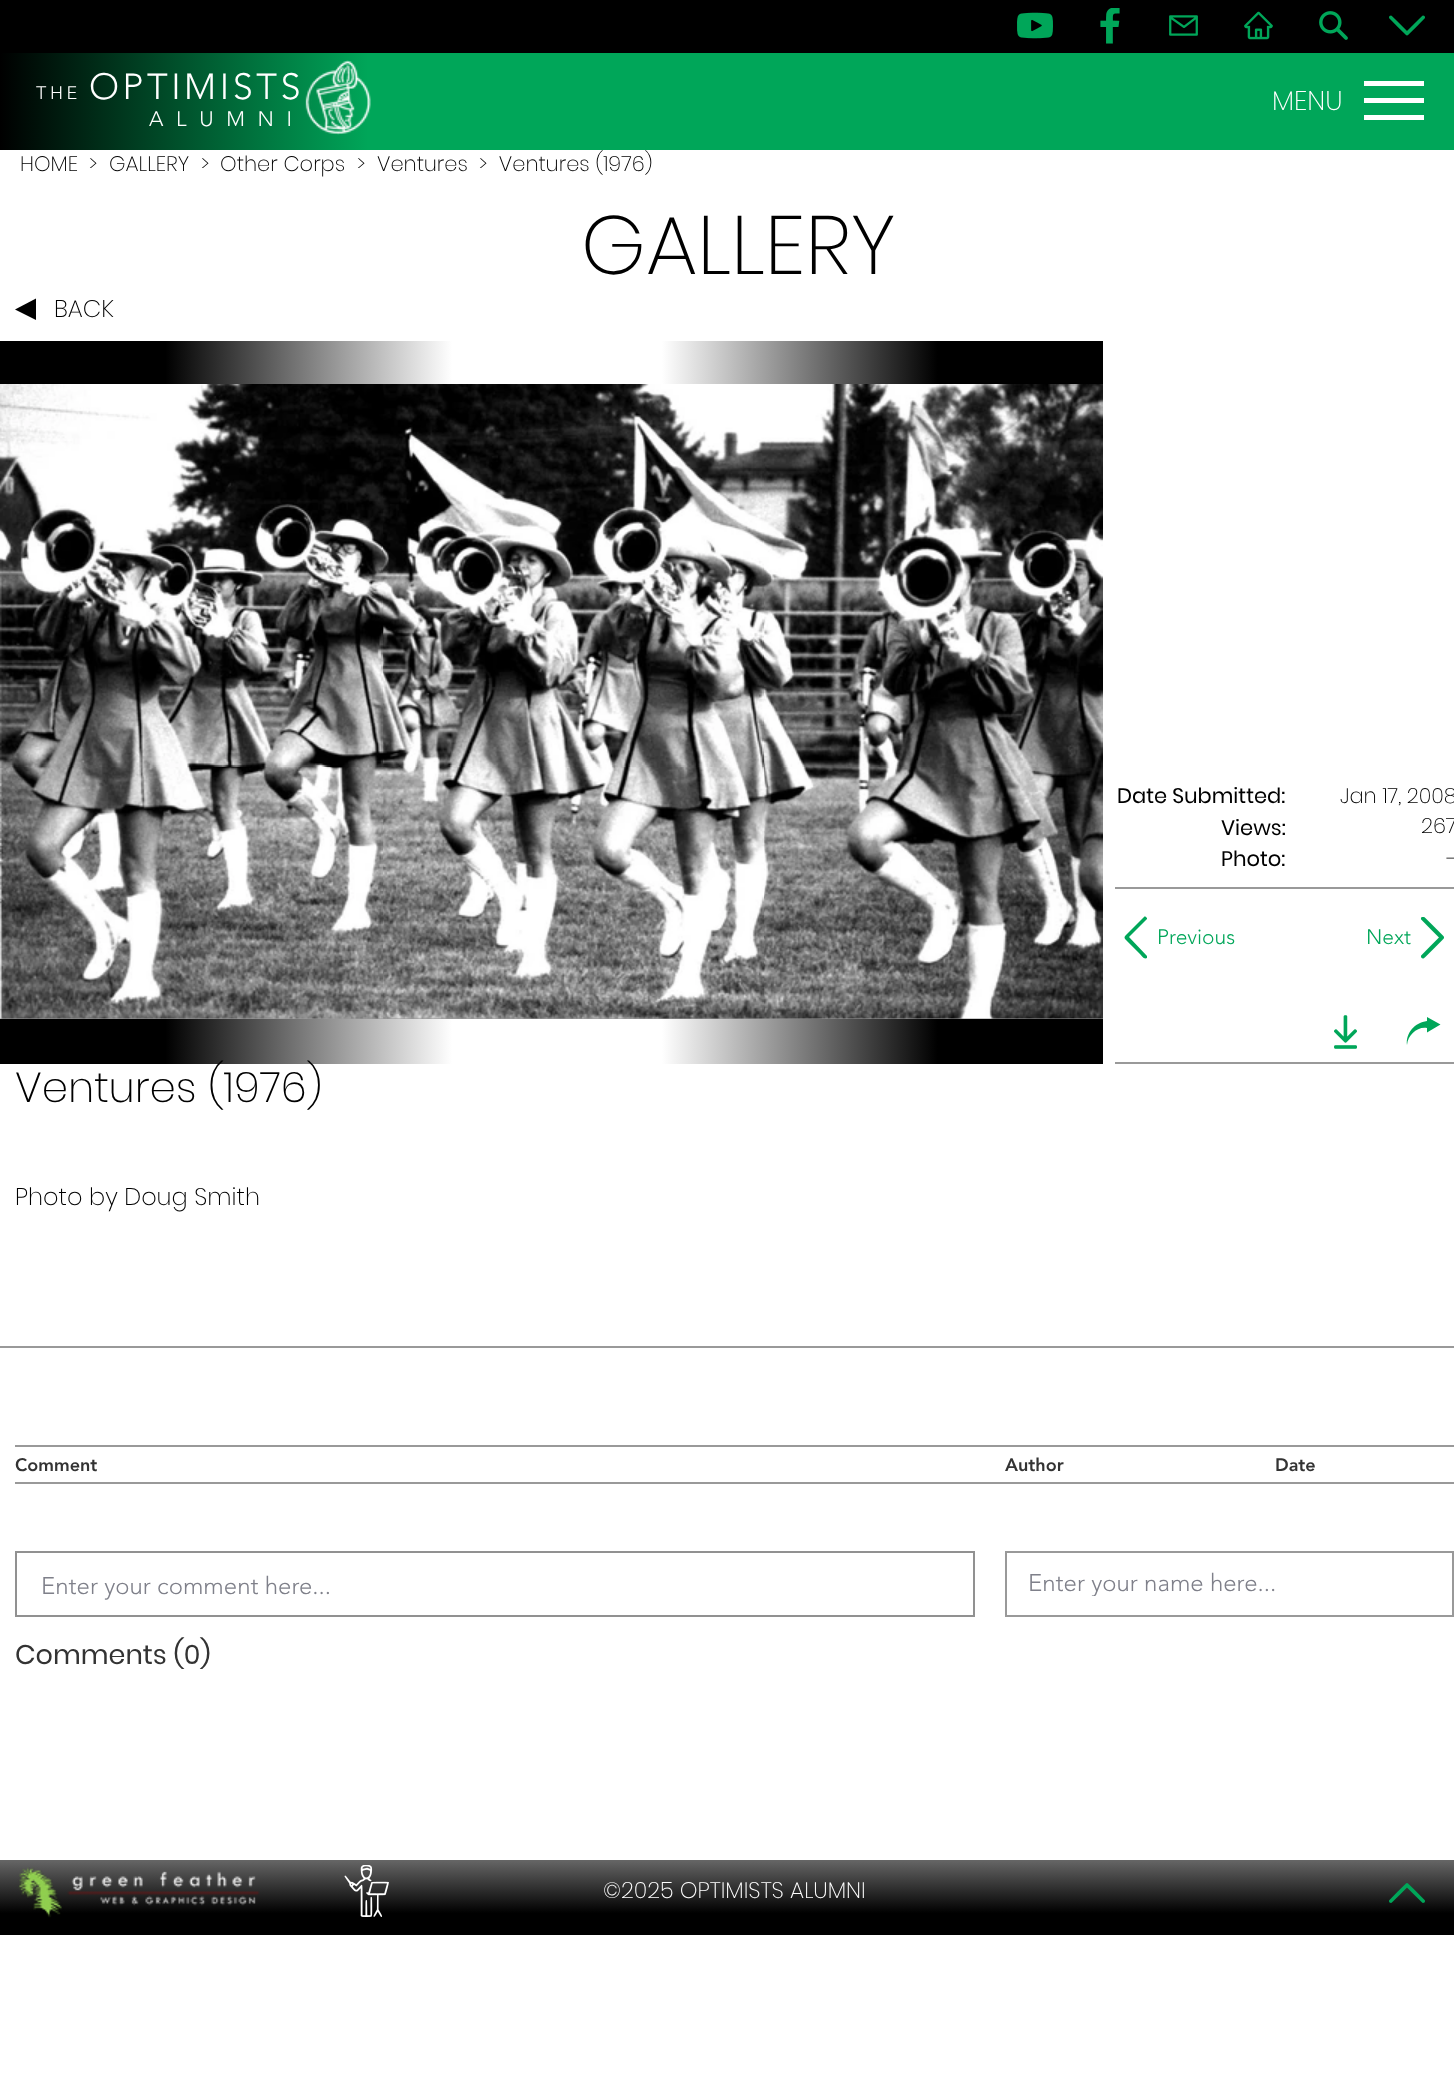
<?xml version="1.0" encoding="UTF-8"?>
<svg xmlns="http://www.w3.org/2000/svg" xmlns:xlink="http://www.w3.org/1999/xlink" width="1454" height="2087">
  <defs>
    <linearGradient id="g1" gradientUnits="userSpaceOnUse" x1="0" y1="101" x2="368" y2="101"><stop offset="0" stop-color="#000000" /><stop offset="1" stop-color="#00a659" /></linearGradient>
    <linearGradient id="g2" gradientUnits="userSpaceOnUse" x1="0" y1="702" x2="1103" y2="702"><stop offset="0.15" stop-color="#000000" /><stop offset="0.41" stop-color="#ffffff" /><stop offset="0.6" stop-color="#ffffff" /><stop offset="0.85" stop-color="#000000" /></linearGradient>
    <linearGradient id="g3" gradientUnits="userSpaceOnUse" x1="735" y1="1935" x2="735" y2="1860"><stop offset="0.29" stop-color="#000000" /><stop offset="1" stop-color="#666666" /></linearGradient>
    <clipPath id="clip1"><rect x="1028" y="1568" width="420" height="28" /></clipPath>
  </defs>
  <rect width="100%" height="100%" fill="#ffffff" />
  <rect width="1454" height="53" fill="#000000" />
  <image x="1017" y="12" width="36" height="27" xlink:href="image1.png" />
  <image x="1100" y="8" width="20" height="36" xlink:href="image2.png" />
  <image x="1169" y="15" width="29" height="21" xlink:href="image3.png" />
  <image x="1244" y="11" width="29" height="29" xlink:href="image4.png" />
  <image x="1319" y="11" width="29" height="29" xlink:href="image5.png" />
  <image x="1389" y="15" width="36" height="21" xlink:href="image6.png" />
  <rect x="368" y="53" width="1086" height="97" fill="#00a659" />
  <rect y="53" width="368" height="97" fill="url(#g1)" />
  <image x="305" y="60" width="66" height="75" xlink:href="image7.png" />
  <rect x="1364" y="115" width="60" height="5" fill="#ffffff" />
  <rect x="1364" y="81" width="60" height="5" fill="#ffffff" />
  <rect x="1364" y="98" width="60" height="5" fill="#ffffff" />
  <path d="M 36 320 l -21 -10.5 l 21 -11 z" fill="#000000" />
  <rect y="341" width="1103" height="723" fill="url(#g2)" />
  <rect y="1018" width="1103" height="1" fill="#999999" />
  <image x="0" y="384" width="1103" height="635" xlink:href="image8.png" />
  <rect x="1115" y="887" width="339" height="2" fill="#999999" />
  <path d="M 1144 917 l -18 18 c -2 2 -2 3 0 5 l 14 14 c 1 1 4 6 7 4 v -2 l -18 -19 l 18 -18 v -1 c -1 -1 -2 -2 -3 -1 z" fill="#00a659" />
  <image x="1420" y="917" width="24" height="42" xlink:href="image9.png" />
  <image x="1334" y="1015" width="23" height="34" xlink:href="image10.png" />
  <path d="M 1407 1045 c 1 -10 10 -18.5 20 -17 v 4.5 l 13.5 -8 l -13.5 -7.5 v 4 c -12 1.5 -21.5 12 -20 24 z" fill="#00a659" />
  <rect x="1115" y="1062" width="339" height="2" fill="#999999" />
  <rect y="1346" width="1454" height="2" fill="#999999" />
  <rect x="15" y="1445" width="1439" height="2" fill="#999999" />
  <rect x="15" y="1482" width="1439" height="2" fill="#999999" />
  <rect x="16" y="1552" width="958" height="64" fill="none" stroke="#919191" stroke-width="2" />
  <rect x="1006" y="1552" width="447" height="64" fill="none" stroke="#999999" stroke-width="2" />
  <rect y="1860" width="1454" height="75" fill="url(#g3)" />
  <image x="18" y="1867" width="242" height="51" xlink:href="image11.png" />
  <image x="344" y="1865" width="45" height="52" xlink:href="image12.png" />
  <image x="1389" y="1883" width="36" height="20" xlink:href="image13.png" />
  <text x="36" y="99" style="font-family: 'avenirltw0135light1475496'; font-size: 18px; font-weight: 300; letter-spacing: 3.6px; fill: #ffffff">THE</text>
  <text x="89" y="99" style="font-family: 'avenirltw0135light1475496'; font-size: 36px; font-weight: 300; letter-spacing: 3.6px; fill: #ffffff">OPTIMISTS</text>
  <text x="149" y="126" style="font-family: 'avenirltw0135light1475496'; font-size: 21px; font-weight: 300; letter-spacing: 3.6px; fill: #ffffff">A L U M N I</text>
  <text x="1272" y="110" style="font-family: Poppins; font-size: 27px; font-weight: 200; fill: #ffffff">MENU</text>
  <text x="20" y="171" style="font-family: Poppins; font-size: 21px; font-weight: 200; fill: #000000">HOME</text>
  <text x="89" y="171" style="font-family: Poppins; font-size: 21px; font-weight: 200; fill: #000000">&gt;</text>
  <text x="109" y="171" style="font-family: Poppins; font-size: 21px; font-weight: 200; fill: #000000">GALLERY</text>
  <text x="201" y="171" style="font-family: Poppins; font-size: 21px; font-weight: 200; fill: #000000">&gt;</text>
  <text x="220" y="171" style="font-family: Poppins; font-size: 21px; font-weight: 200; fill: #000000">Other Corps</text>
  <text x="357" y="171" style="font-family: Poppins; font-size: 21px; font-weight: 200; fill: #000000">&gt;</text>
  <text x="377" y="171" style="font-family: Poppins; font-size: 21px; font-weight: 200; fill: #000000">Ventures</text>
  <text x="479" y="171" style="font-family: Poppins; font-size: 21px; font-weight: 200; fill: #000000" xml:space="preserve">&gt;  Ventures (1976)</text>
  <text x="581" y="274" style="font-family: Poppins; font-size: 82.5px; font-weight: 200; fill: #000000">GALLERY</text>
  <text x="54" y="317" style="font-family: Poppins; font-size: 24px; font-weight: 200; fill: #000000">BACK</text>
  <text x="1117" y="803" style="font-family: Poppins; font-size: 21px; fill: #000000">Date Submitted:</text>
  <text x="1340" y="803" style="font-family: Poppins; font-size: 21px; font-weight: 200; fill: #000000">Jan 17, 2008</text>
  <text x="1221" y="835" style="font-family: Poppins; font-size: 21px; fill: #000000">Views:</text>
  <text x="1421" y="833" style="font-family: Poppins; font-size: 21px; font-weight: 200; fill: #000000">267</text>
  <text x="1221" y="866" style="font-family: Poppins; font-size: 21px; fill: #000000">Photo:</text>
  <text x="1447" y="866" style="font-family: Poppins; font-size: 21px; font-weight: 200; fill: #000000">-</text>
  <text x="1157" y="944" style="font-family: 'avenirltw0135light1475496'; font-size: 21px; font-weight: 300; fill: #00a659">Previous</text>
  <text x="1366" y="944" style="font-family: 'avenirltw0135light1475496'; font-size: 21px; font-weight: 300; fill: #00a659">Next</text>
  <text x="15" y="1102" style="font-family: Poppins; font-size: 42px; font-weight: 200; fill: #000000">Ventures (1976)</text>
  <text x="15" y="1205" style="font-family: Poppins; font-size: 24px; font-weight: 200; fill: #000000">Photo by Doug Smith</text>
  <text x="15" y="1471" style="font-family: 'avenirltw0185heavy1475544'; font-size: 18px; font-weight: 900; fill: #333333">Comment</text>
  <text x="1005" y="1471" style="font-family: 'avenirltw0185heavy1475544'; font-size: 18px; font-weight: 900; fill: #333333">Author</text>
  <text x="1275" y="1471" style="font-family: 'avenirltw0185heavy1475544'; font-size: 18px; font-weight: 900; fill: #333333">Date</text>
  <text x="41" y="1594" style="font-family: 'avenirltw0135light1475496'; font-size: 24px; font-weight: 300; fill: #7f808a">Enter your comment here...</text>
  <g clip-path="url(#clip1)">
    <text x="1028" y="1591" style="font-family: 'avenirltw0135light1475496'; font-size: 24px; font-weight: 300; fill: #7f808a">Enter your name here...</text>
  </g>
  <text x="15" y="1664" style="font-family: Poppins; font-size: 27px; fill: #333333">Comments (0)</text>
  <text x="603" y="1898" style="font-family: Poppins; font-size: 22.5px; font-weight: 200; fill: #ffffff">©2025 OPTIMISTS ALUMNI</text>
</svg>
